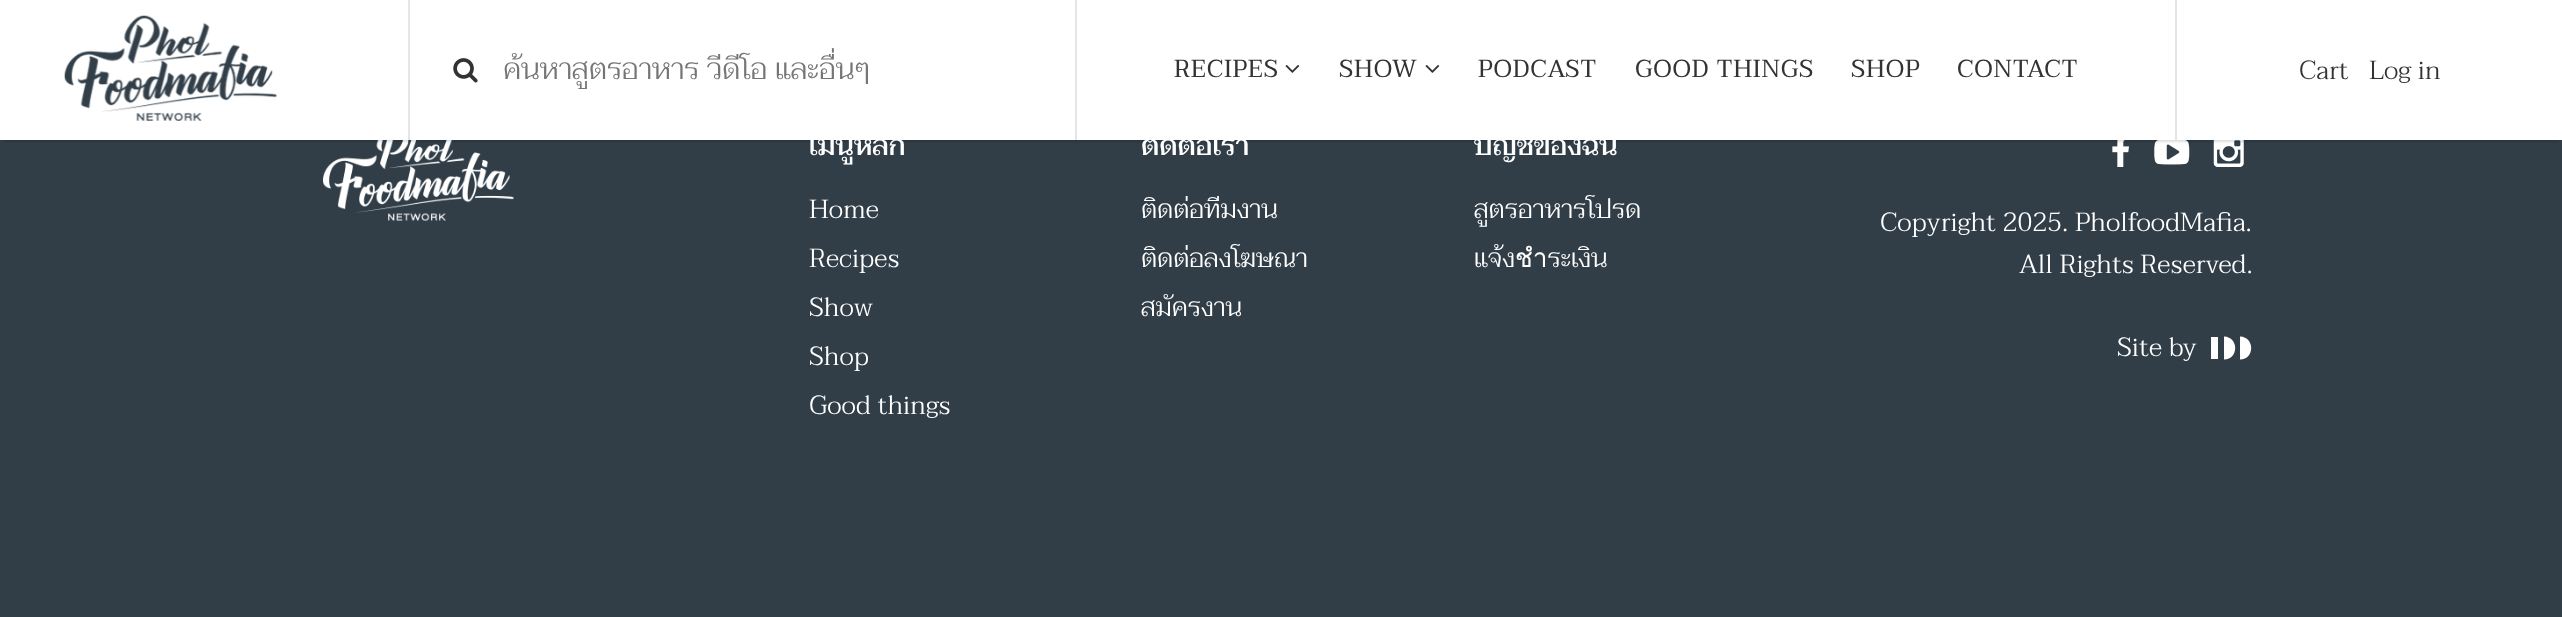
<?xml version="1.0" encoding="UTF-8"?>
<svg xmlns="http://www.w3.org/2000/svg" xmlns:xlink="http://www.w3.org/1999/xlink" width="2562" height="617">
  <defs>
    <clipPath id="clip1"><rect x="502" y="44" width="573" height="51" /></clipPath>
  </defs>
  <rect width="100%" height="100%" fill="#313e48" />
  <image x="323" y="140" width="191" height="81" xlink:href="image4.png" />
  <image x="2112" y="140" width="17" height="27" xlink:href="image5.png" />
  <image x="2154" y="140" width="36" height="25" xlink:href="image6.png" />
  <image x="2213" y="140" width="31" height="27" xlink:href="image7.png" />
  <rect x="4" y="9" width="2555" height="133" fill="#000000" fill-opacity="0.13" filter="blur(1px)" />
  <rect width="2562" height="140" fill="#ffffff" />
  <rect x="408" width="2" height="140" fill="#e5e5e5" />
  <image x="64" y="15" width="213" height="106" xlink:href="image1.png" />
  <rect x="1075" width="2" height="140" fill="#e5e5e5" />
  <image x="453" y="58" width="25" height="25" xlink:href="image2.png" />
  <rect x="2175" width="2" height="140" fill="#e5e5e5" />
  <image x="1285" y="65" width="15" height="8" xlink:href="image3.png" />
  <image x="1425" y="65" width="15" height="8" xlink:href="image3.png" />
  <rect x="2211" y="337" width="7" height="22" fill="#ffffff" />
  <path d="M 2224 336.5 v 23 c 15 0 15 -22.5 0 -23 z m 16 0 v 23 c 15 0 15 -22.5 0 -23 z" fill="#ffffff" />
  <g clip-path="url(#clip1)">
    <text x="503" y="79" style="font-family: Taviraj; font-size: 29.75px; font-weight: 300; fill: #757575">ค้นหาสูตรอาหาร วีดีโอ และอื่นๆ</text>
  </g>
  <text x="1174" y="77" style="font-family: Taviraj; font-size: 24.5px; letter-spacing: 0.75px; fill: #333333">RECIPES</text>
  <text x="1339" y="77" style="font-family: Taviraj; font-size: 24.5px; letter-spacing: 0.75px; fill: #333333">SHOW</text>
  <text x="1478" y="77" style="font-family: Taviraj; font-size: 24.5px; letter-spacing: 0.75px; fill: #333333">PODCAST</text>
  <text x="1635" y="77" style="font-family: Taviraj; font-size: 24.5px; letter-spacing: 0.75px; fill: #333333">GOOD THINGS</text>
  <text x="1851" y="77" style="font-family: Taviraj; font-size: 24.5px; letter-spacing: 0.75px; fill: #333333">SHOP</text>
  <text x="1957" y="77" style="font-family: Taviraj; font-size: 24.5px; letter-spacing: 0.75px; fill: #333333">CONTACT</text>
  <text x="2299" y="79" style="font-family: Taviraj; font-size: 26.25px; font-weight: 300; fill: #333333">Cart</text>
  <text x="2369" y="79" style="font-family: Taviraj; font-size: 26.25px; font-weight: 300; fill: #333333">Log in</text>
  <text x="809" y="155" style="font-family: Taviraj; font-size: 28px; font-weight: 500; fill: #ffffff">เมนูหลัก</text>
  <text x="809" y="218" style="font-family: Taviraj; font-size: 26.25px; font-weight: 300; fill: #ffffff">Home</text>
  <text x="809" y="267" style="font-family: Taviraj; font-size: 26.25px; font-weight: 300; fill: #ffffff">Recipes</text>
  <text x="809" y="316" style="font-family: Taviraj; font-size: 26.25px; font-weight: 300; fill: #ffffff">Show</text>
  <text x="809" y="365" style="font-family: Taviraj; font-size: 26.25px; font-weight: 300; fill: #ffffff">Shop</text>
  <text x="809" y="414" style="font-family: Taviraj; font-size: 26.25px; font-weight: 300; fill: #ffffff">Good things</text>
  <text x="1141" y="155" style="font-family: Taviraj; font-size: 28px; font-weight: 500; fill: #ffffff">ติดต่อเรา</text>
  <text x="1141" y="218" style="font-family: Taviraj; font-size: 26.25px; font-weight: 300; fill: #ffffff">ติดต่อทีมงาน</text>
  <text x="1141" y="267" style="font-family: Taviraj; font-size: 26.25px; font-weight: 300; fill: #ffffff">ติดต่อลงโฆษณา</text>
  <text x="1141" y="316" style="font-family: Taviraj; font-size: 26.25px; font-weight: 300; fill: #ffffff">สมัครงาน</text>
  <text x="1474" y="155" style="font-family: Taviraj; font-size: 28px; font-weight: 500; fill: #ffffff">บัญชีของฉัน</text>
  <text x="1474" y="218" style="font-family: Taviraj; font-size: 26.25px; font-weight: 300; fill: #ffffff">สูตรอาหารโปรด</text>
  <text x="1474" y="267" style="font-family: Taviraj; font-size: 26.25px; font-weight: 300; fill: #ffffff">แจ้งชำระเงิน</text>
  <text x="1880" y="231" style="font-family: Taviraj; font-size: 26.25px; font-weight: 300; fill: #ffffff">Copyright 2025. PholfoodMafia.</text>
  <text x="2019" y="273" style="font-family: Taviraj; font-size: 26.25px; font-weight: 300; fill: #ffffff">All Rights Reserved.</text>
  <text x="2117" y="356" style="font-family: Taviraj; font-size: 26.25px; font-weight: 300; fill: #ffffff">Site by</text>
</svg>
